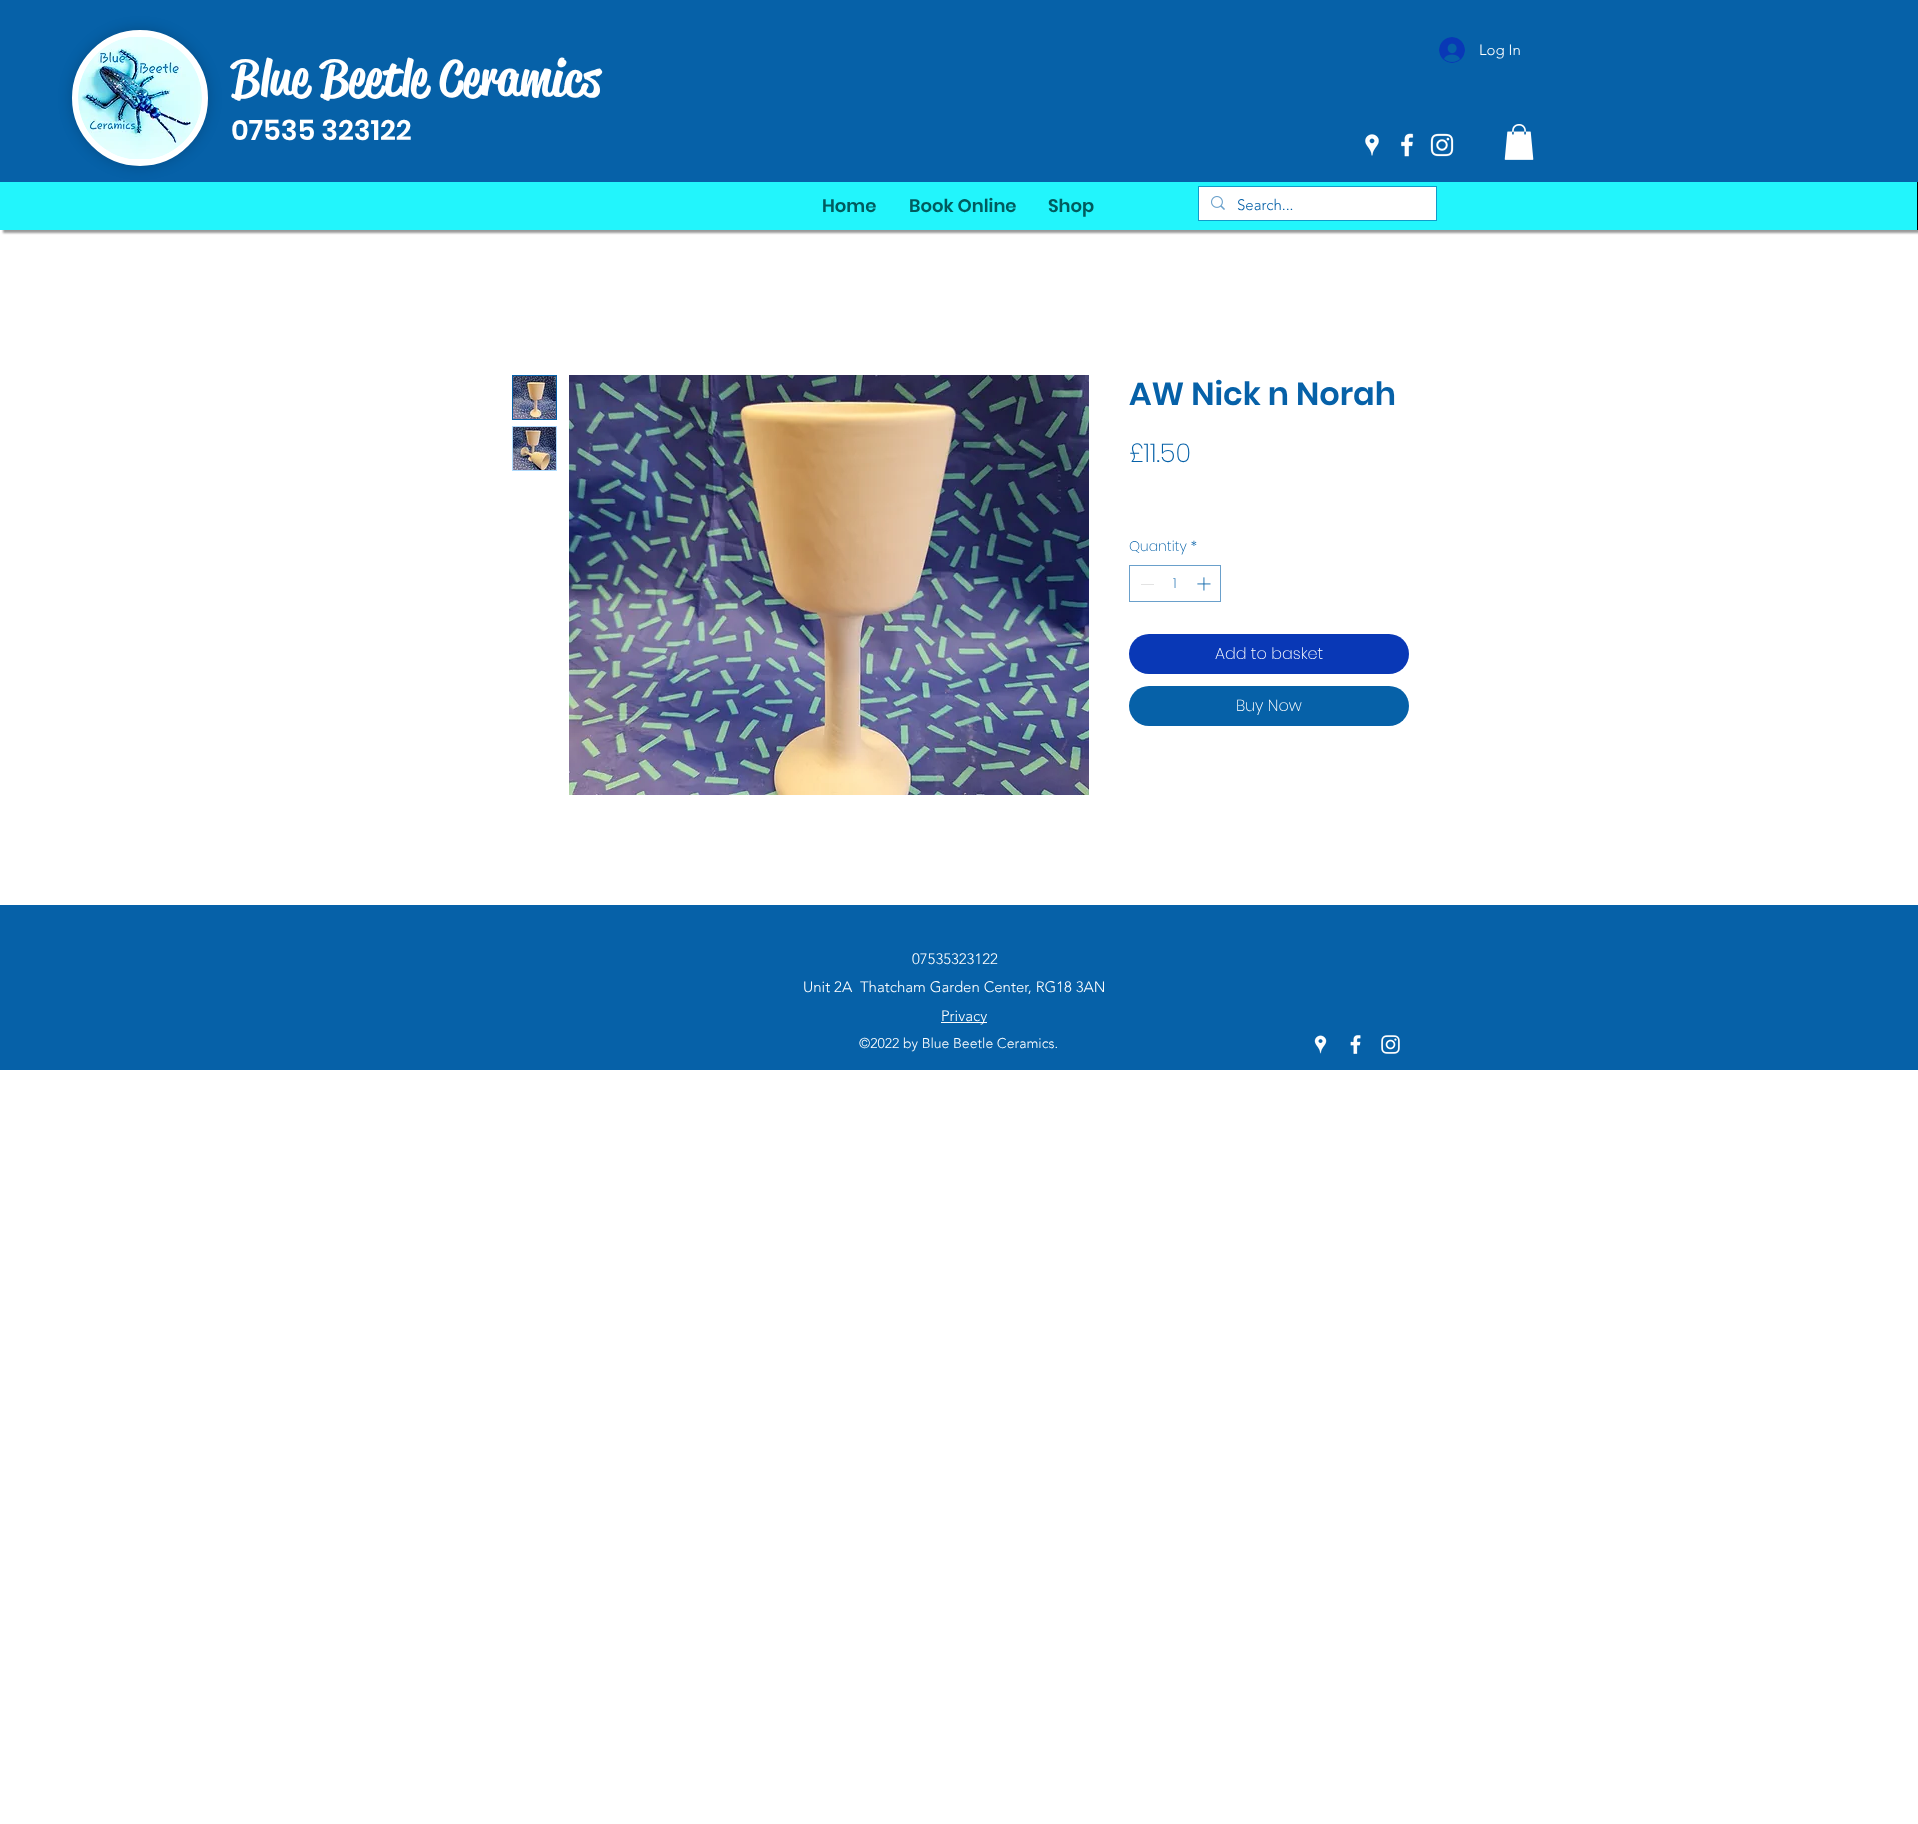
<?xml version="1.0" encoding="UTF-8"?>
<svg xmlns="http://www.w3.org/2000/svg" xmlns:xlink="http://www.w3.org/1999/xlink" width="1918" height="1824">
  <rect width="100%" height="100%" fill="#ffffff" />
  <rect width="1918" height="182" fill="#0661a8" />
  <image x="1439" y="37" width="26" height="26" xlink:href="image1.png" />
  <image x="1365" y="134" width="14" height="22" xlink:href="image2.png" />
  <image x="1401" y="133" width="13" height="24" xlink:href="image3.png" />
  <image x="1430" y="133" width="24" height="24" xlink:href="image4.png" />
  <image x="1504" y="124" width="30" height="36" xlink:href="image5.png" />
  <rect x="72" y="30" width="136" height="136" rx="68" fill="#000000" fill-opacity="0.2" filter="blur(7px)" />
  <circle cx="140" cy="98" r="65" fill="#ffffff" stroke="#ffffff" stroke-width="6" />
  <image x="78" y="37" width="124" height="122" xlink:href="image6.png" />
  <rect x="3" y="185" width="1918" height="48" fill="#000000" fill-opacity="0.4" filter="blur(1px)" />
  <rect y="182" width="1917" height="48" fill="#22f5fc" />
  <rect x="1917" y="182" width="1" height="48" fill="#000000" />
  <rect x="1198.5" y="186.5" width="238" height="34" fill="none" stroke="#119cca" />
  <rect x="1199" y="187" width="237" height="33" fill="#ffffff" />
  <image x="1211" y="196" width="14" height="14" xlink:href="image7.png" />
  <rect x="512.5" y="375.5" width="44" height="44" fill="none" stroke="#0661a8" />
  <image x="513" y="376" width="43" height="43" xlink:href="image8.png" />
  <rect x="512" y="426" width="45" height="45" fill="#aedafc" />
  <image x="513" y="427" width="43" height="43" xlink:href="image9.png" />
  <image x="569" y="375" width="520" height="420" xlink:href="image10.png" />
  <rect x="1129.5" y="565.5" width="91" height="36" fill="none" stroke="#6aa0cb" />
  <rect x="1141" y="584" width="13" height="1" fill="#e3e3e3" />
  <image x="1197" y="577" width="14" height="14" xlink:href="image11.png" />
  <rect x="1129" y="634" width="280" height="40" rx="20" fill="#0938b6" />
  <rect x="1129" y="686" width="280" height="40" rx="20" fill="#0661a8" />
  <rect y="905" width="1918" height="165" fill="#0661a8" />
  <rect x="941" y="1022" width="46" height="1" fill="#ffffff" />
  <image x="1314" y="1035" width="13" height="19" xlink:href="image12.png" />
  <image x="1350" y="1035" width="11" height="19" xlink:href="image13.png" />
  <image x="1381" y="1035" width="19" height="19" xlink:href="image14.png" />
  <text x="1479" y="55" style="font-family: 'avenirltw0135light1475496'; font-size: 15px; font-weight: 300; fill: #ffffff">Log In</text>
  <text x="231" y="95" style="font-family: 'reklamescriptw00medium'; font-size: 50px; font-weight: 500; fill: #ffffff">Blue Beetle Ceramics</text>
  <text x="231" y="140" style="font-family: Poppins; font-size: 28px; font-weight: 600; fill: #ffffff">07535 323122</text>
  <text x="822" y="212" style="font-family: Poppins; font-size: 18px; font-weight: 600; fill: #015b5e">Home</text>
  <text x="909" y="212" style="font-family: Poppins; font-size: 18px; font-weight: 600; fill: #015b5e">Book Online</text>
  <text x="1048" y="212" style="font-family: Poppins; font-size: 18px; font-weight: 600; fill: #015b5e">Shop</text>
  <text x="1237" y="210" style="font-family: 'avenirltw0135light1475496'; font-size: 15px; font-weight: 300; fill: #0661a8">Search...</text>
  <text x="1129" y="405" style="font-family: Poppins; font-size: 32px; font-weight: 600; fill: #0661a8">AW Nick n Norah</text>
  <text x="1129" y="462" style="font-family: Poppins; font-size: 26px; font-weight: 200; fill: #0661a8">£11.50</text>
  <text x="1129" y="551" style="font-family: Poppins; font-size: 14px; font-weight: 200; fill: #0661a8">Quantity *</text>
  <text x="1173" y="588" style="font-family: Poppins; font-size: 14px; font-weight: 200; fill: #0661a8">1</text>
  <text x="1215" y="659" style="font-family: Poppins; font-size: 16px; font-weight: 200; fill: #ffffff">Add to basket</text>
  <text x="1236" y="711" style="font-family: Poppins; font-size: 16px; font-weight: 200; fill: #ffffff">Buy Now</text>
  <text x="912" y="964" style="font-family: 'avenirltw0135light1475496'; font-size: 15px; font-weight: 300; fill: #ffffff">07535323122</text>
  <text x="803" y="992" style="font-family: 'avenirltw0135light1475496'; font-size: 15px; font-weight: 300; fill: #ffffff" xml:space="preserve">Unit 2A  Thatcham Garden Center, RG18 3AN</text>
  <text x="941" y="1021" style="font-family: 'avenirltw0135light1475496'; font-size: 15px; font-weight: 300; fill: #ffffff">Privacy</text>
  <text x="859" y="1048" style="font-family: 'avenirltw0135light1475496'; font-size: 14px; font-weight: 300; fill: #ffffff">©2022 by Blue Beetle Ceramics.</text>
</svg>
